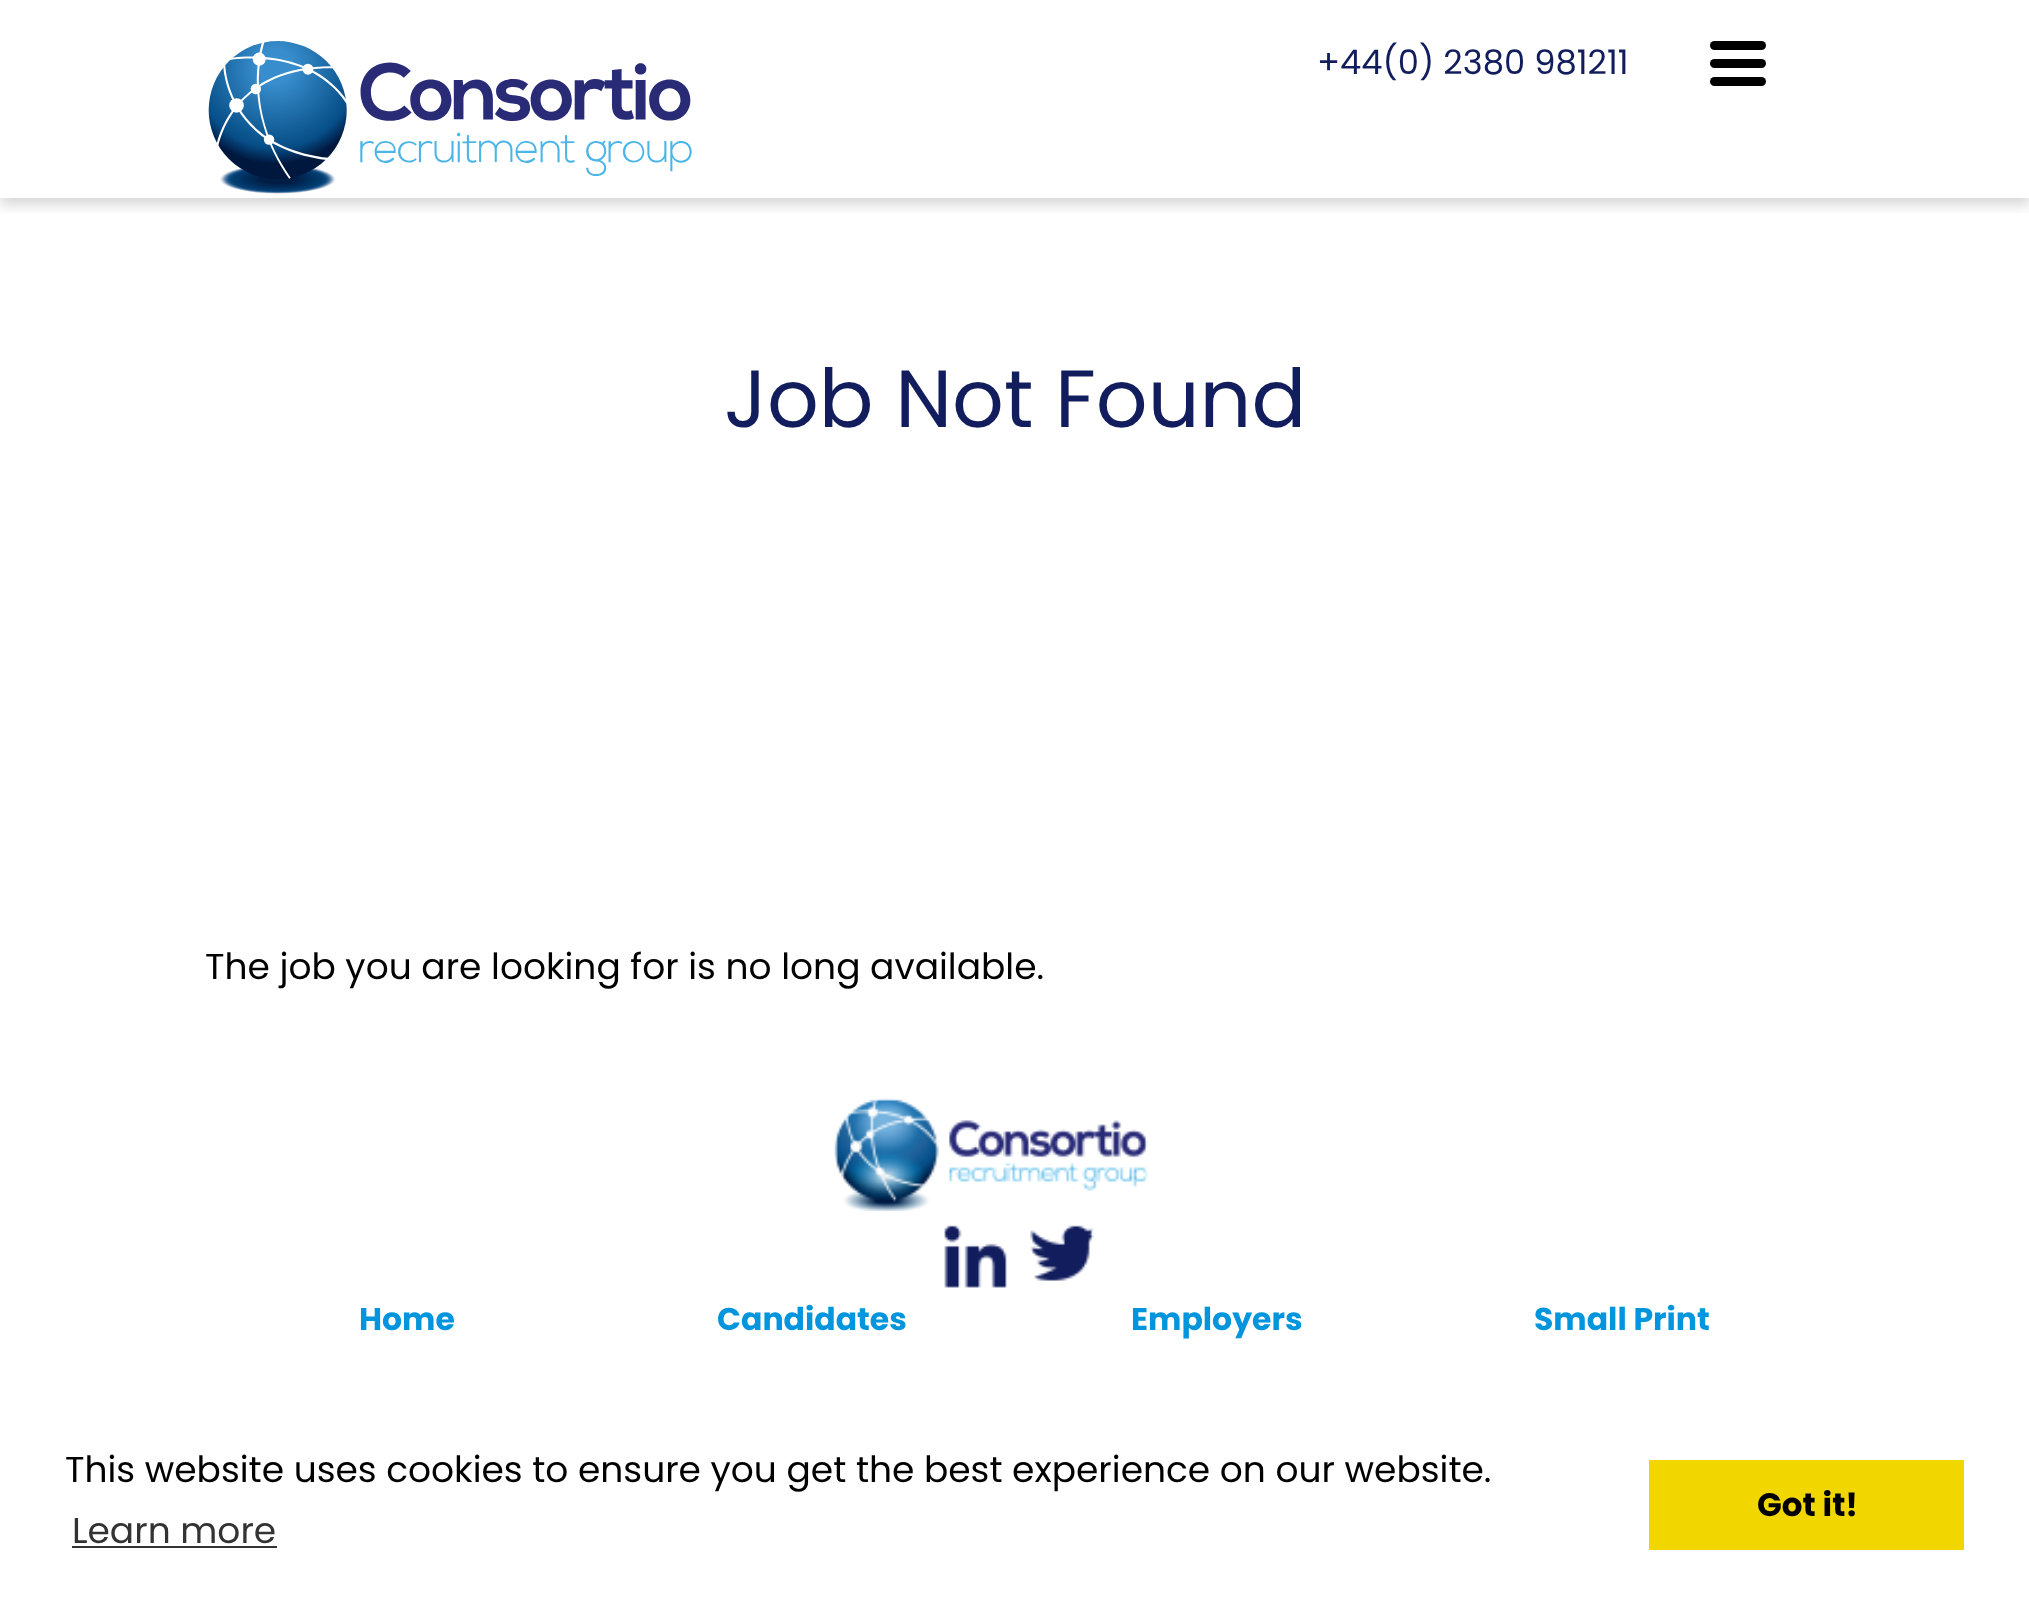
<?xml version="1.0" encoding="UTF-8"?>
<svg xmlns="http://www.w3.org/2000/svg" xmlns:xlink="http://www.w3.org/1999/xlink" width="2029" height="1600">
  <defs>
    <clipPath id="clip1"><rect x="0" y="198" width="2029" height="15" /></clipPath>
  </defs>
  <rect width="100%" height="100%" fill="#ffffff" />
  <g clip-path="url(#clip1)">
    <rect y="7" width="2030" height="198" fill="#000000" fill-opacity="0.16" filter="blur(7px)" />
  </g>
  <image x="208" y="41" width="484" height="153" xlink:href="image1.png" />
  <rect x="1710" y="41" width="56" height="9" rx="4.5" fill="#000000" />
  <rect x="1710" y="59" width="56" height="9" rx="4.5" fill="#000000" />
  <rect x="1710" y="77" width="56" height="9" rx="4.5" fill="#000000" />
  <image x="834" y="1098" width="314" height="113" xlink:href="image2.png" />
  <image x="944" y="1225" width="63" height="63" xlink:href="image3.png" />
  <image x="1030" y="1225" width="64" height="56" xlink:href="image4.png" />
  <rect x="72" y="1546" width="205" height="2" fill="#333333" />
  <rect x="1649" y="1460" width="315" height="90" fill="#f1d600" />
  <text x="1317" y="74" style="font-family: Poppins; font-size: 33.75px; fill: #121d5d">+44(0) 2380 981211</text>
  <text x="724" y="427" style="font-family: Poppins; font-size: 81px; fill: #121d5d">Job Not Found</text>
  <text x="205" y="979" style="font-family: Poppins; font-size: 36px; fill: #000000">The job you are looking for is no long available.</text>
  <text x="359" y="1330" style="font-family: Poppins; font-size: 31.5px; font-weight: bold; fill: #0095dd">Home</text>
  <text x="717" y="1330" style="font-family: Poppins; font-size: 31.5px; font-weight: bold; fill: #0095dd">Candidates</text>
  <text x="1131" y="1330" style="font-family: Poppins; font-size: 31.5px; font-weight: bold; fill: #0095dd">Employers</text>
  <text x="1534" y="1330" style="font-family: Poppins; font-size: 31.5px; font-weight: bold; fill: #0095dd">Small Print</text>
  <text x="65" y="1482" style="font-family: Poppins; font-size: 36px; fill: #000000">This website uses cookies to ensure you get the best experience on our website.</text>
  <text x="72" y="1543" style="font-family: Poppins; font-size: 36px; fill: #333333">Learn more</text>
  <text x="1757" y="1516" style="font-family: Poppins; font-size: 32.5px; font-weight: bold; fill: #000000">Got it!</text>
</svg>
